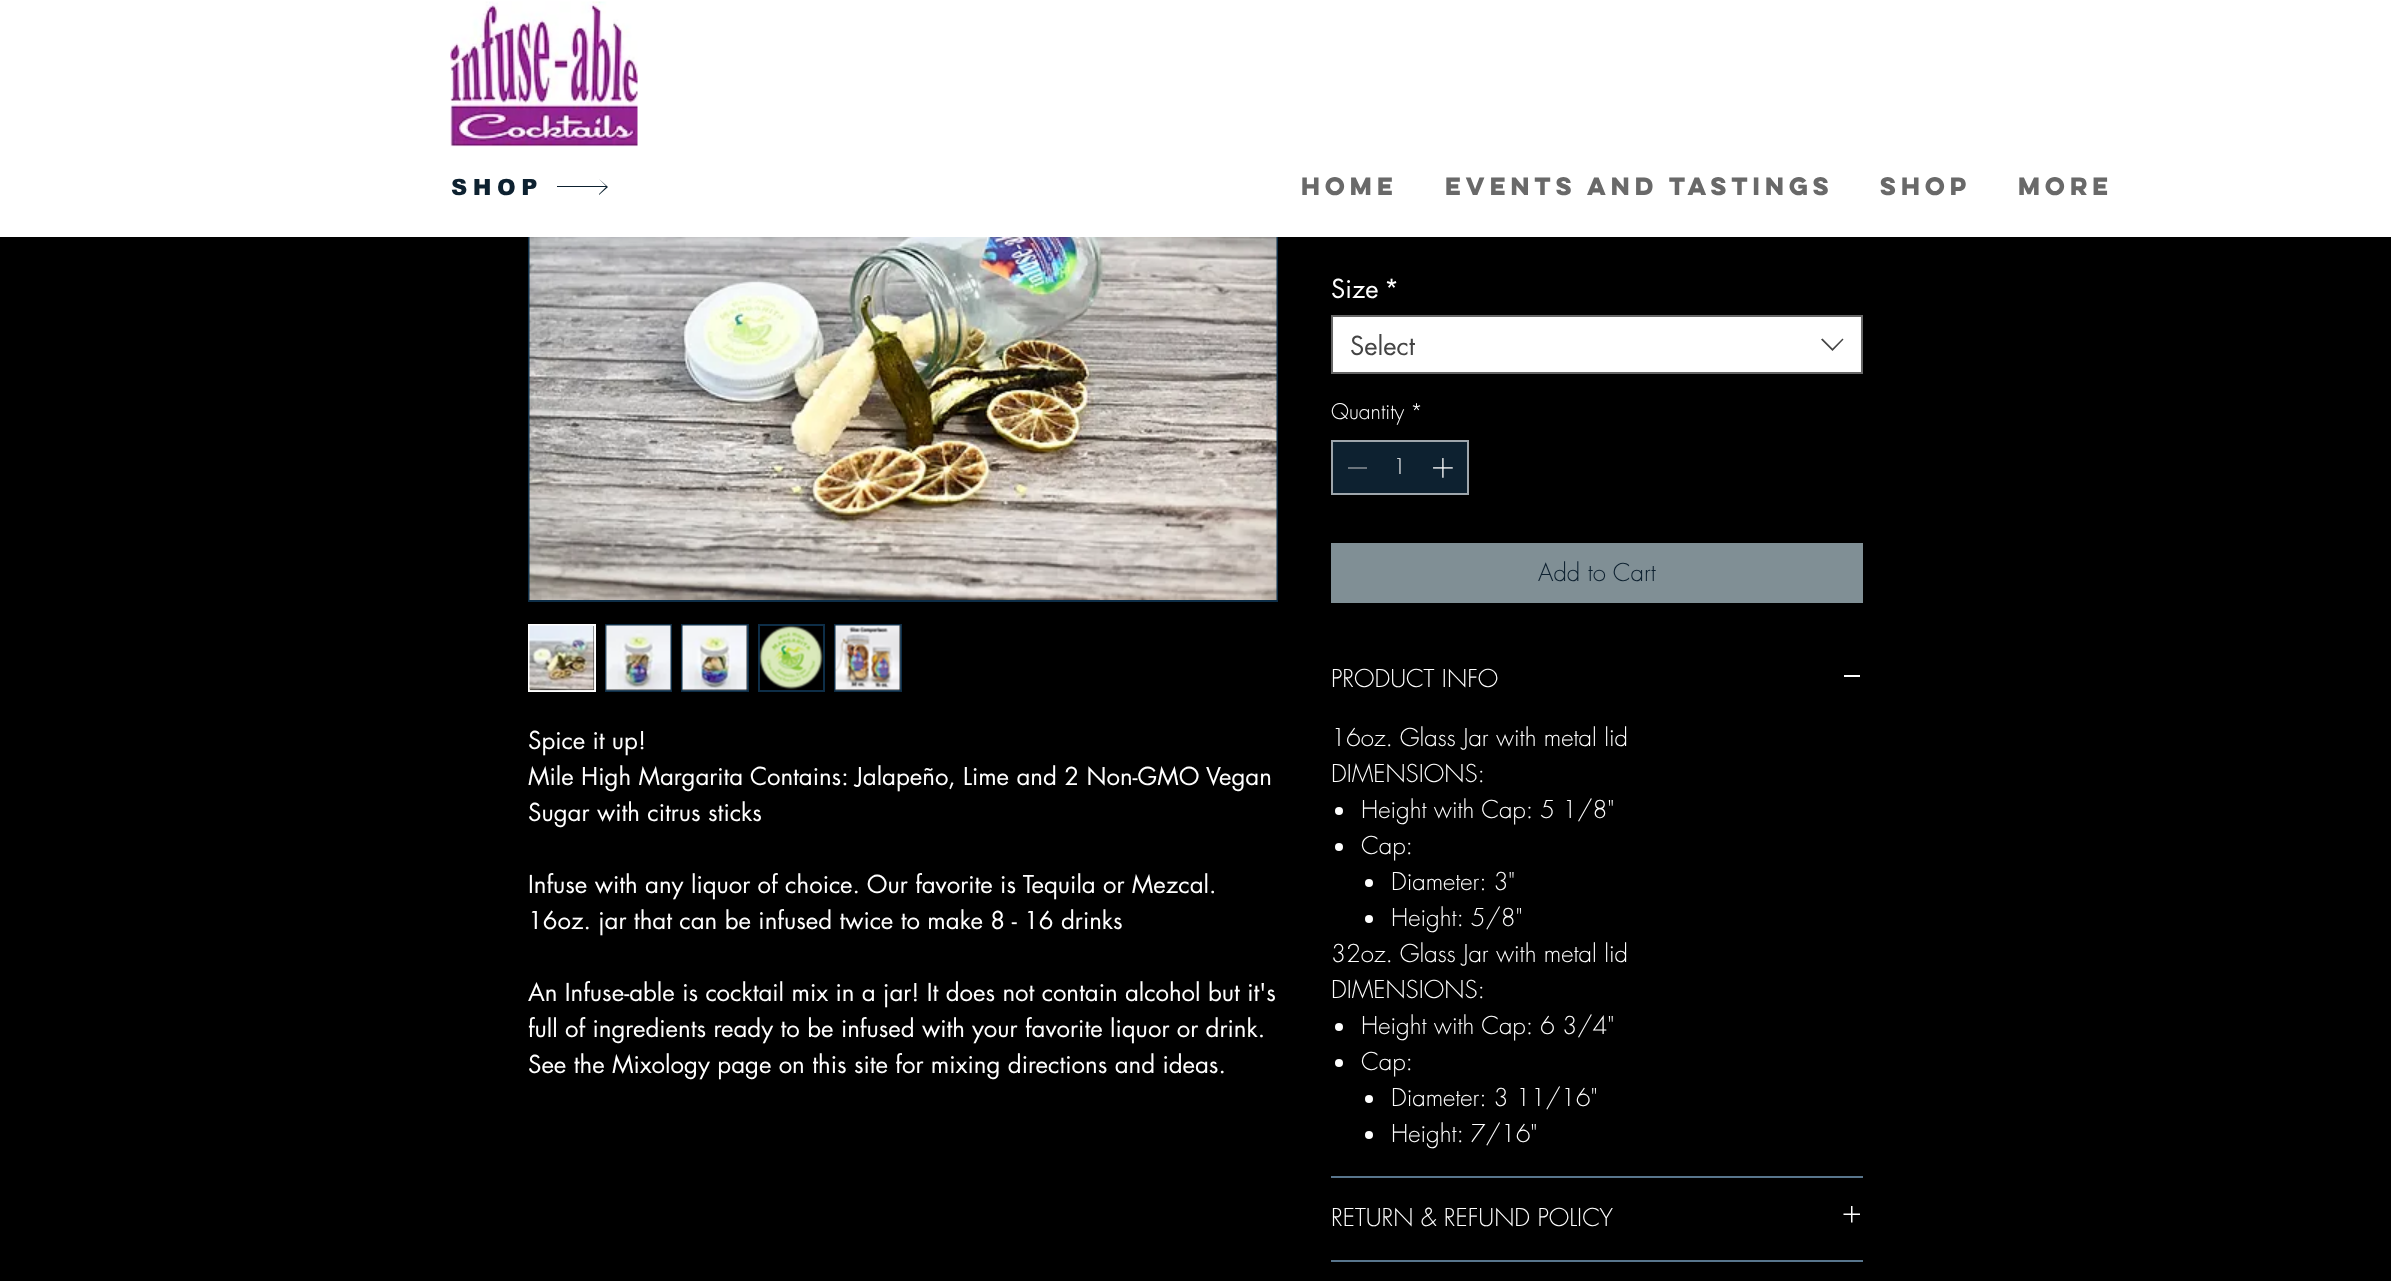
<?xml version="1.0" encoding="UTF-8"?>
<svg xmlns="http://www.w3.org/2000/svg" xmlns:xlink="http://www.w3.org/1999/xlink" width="2391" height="1281">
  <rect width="100%" height="100%" fill="#000000" />
  <rect x="529" y="103" width="748" height="498" fill="none" stroke="#0e2e47" stroke-width="2" />
  <rect width="2391" height="237" fill="#ffffff" />
  <image x="450" y="1" width="188" height="146" xlink:href="image1.png" />
  <path d="M 599 179 l 7 7 h -49 v 1 h 49 l -7 7 v 1 l 9 -8 z" fill="#0d2130" />
  <image x="529" y="237" width="748" height="363" xlink:href="image2.png" />
  <rect x="529" y="625" width="66" height="66" fill="none" stroke="#ffffff" stroke-width="2" />
  <image x="529" y="625" width="66" height="66" xlink:href="image3.png" />
  <rect x="606" y="625" width="65" height="66" fill="none" stroke="#0e2e47" stroke-width="2" />
  <image x="605" y="625" width="66" height="66" xlink:href="image4.png" />
  <rect x="682" y="625" width="66" height="66" fill="none" stroke="#0e2e47" stroke-width="2" />
  <image x="682" y="625" width="66" height="66" xlink:href="image5.png" />
  <rect x="759" y="625" width="65" height="66" fill="none" stroke="#0e2e47" stroke-width="2" />
  <image x="759" y="625" width="64" height="65" xlink:href="image6.png" />
  <rect x="835" y="625" width="66" height="66" fill="none" stroke="#0e2e47" stroke-width="2" />
  <image x="835" y="625" width="66" height="66" xlink:href="image7.png" />
  <rect x="1332" y="316" width="530" height="57" fill="#ffffff" stroke="#666666" stroke-width="2" />
  <path d="M 1842.5 338.5 l 1 1 l -11 11.5 l -11.5 -11.5 l 1.5 -1 l 10 10 z" fill="#444444" fill-rule="evenodd" />
  <rect x="1332" y="441" width="136" height="53" fill="#0d2130" stroke="#9ea6ac" stroke-width="2" />
  <rect x="1348" y="467" width="19" height="2" fill="#6a747c" />
  <image x="1433" y="458" width="20" height="20" xlink:href="image8.png" />
  <rect x="1331" y="543" width="532" height="60" fill="#808f95" />
  <rect x="1331" y="1176" width="532" height="2" fill="#58758c" />
  <rect x="1844" y="675" width="16" height="2" fill="#ffffff" />
  <circle cx="1339" cy="811" r="4" fill="#ffffff" />
  <circle cx="1339" cy="847" r="4" fill="#ffffff" />
  <circle cx="1369" cy="883" r="4" fill="#ffffff" />
  <circle cx="1369" cy="919" r="4" fill="#ffffff" />
  <circle cx="1339" cy="1027" r="4" fill="#ffffff" />
  <circle cx="1339" cy="1063" r="4" fill="#ffffff" />
  <circle cx="1369" cy="1099" r="4" fill="#ffffff" />
  <circle cx="1369" cy="1135" r="4" fill="#ffffff" />
  <rect x="1331" y="1260" width="532" height="2" fill="#58758c" />
  <image x="1843" y="1206" width="17" height="17" xlink:href="image9.png" />
  <text x="451" y="195" style="font-family: arial; font-size: 22.5px; font-weight: 900; letter-spacing: 5.5px; fill: #0d2130">SHOP</text>
  <text x="1301" y="195" style="font-family: 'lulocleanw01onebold'; font-size: 22.5px; font-weight: bold; fill: #696969">Home</text>
  <text x="1445" y="195" style="font-family: 'lulocleanw01onebold'; font-size: 22.5px; font-weight: bold; fill: #696969">Events and Tastings</text>
  <text x="1880" y="195" style="font-family: 'lulocleanw01onebold'; font-size: 22.5px; font-weight: bold; fill: #696969">Shop</text>
  <text x="2018" y="195" style="font-family: 'lulocleanw01onebold'; font-size: 22.5px; font-weight: bold; fill: #696969">More</text>
  <text x="528" y="749" style="font-family: futura; font-size: 24px; fill: #ffffff">Spice it up!</text>
  <text x="528" y="785" style="font-family: futura; font-size: 24px; fill: #ffffff">Mile High Margarita Contains: Jalapeño, Lime and 2 Non-GMO Vegan</text>
  <text x="528" y="821" style="font-family: futura; font-size: 24px; fill: #ffffff">Sugar with citrus sticks</text>
  <text x="528" y="893" style="font-family: futura; font-size: 24px; fill: #ffffff">Infuse with any liquor of choice. Our favorite is Tequila or Mezcal.</text>
  <text x="528" y="929" style="font-family: futura; font-size: 24px; fill: #ffffff">16oz. jar that can be infused twice to make 8 - 16 drinks</text>
  <text x="528" y="1001" style="font-family: futura; font-size: 24px; fill: #ffffff">An Infuse-able is cocktail mix in a jar! It does not contain alcohol but it's</text>
  <text x="528" y="1037" style="font-family: futura; font-size: 24px; fill: #ffffff">full of ingredients ready to be infused with your favorite liquor or drink.</text>
  <text x="528" y="1073" style="font-family: futura; font-size: 24px; fill: #ffffff">See the Mixology page on this site for mixing directions and ideas.</text>
  <text x="1331" y="298" style="font-family: futura; font-size: 25.5px; fill: #ffffff">Size</text>
  <text x="1384" y="298" style="font-family: futura; font-size: 25.5px; fill: #ffffff">*</text>
  <text x="1350" y="355" style="font-family: futura; font-size: 25.5px; fill: #444444">Select</text>
  <text x="1331" y="419" style="font-family: futura; font-size: 21px; font-weight: 300; fill: #ffffff">Quantity</text>
  <text x="1410" y="419" style="font-family: futura; font-size: 21px; font-weight: 300; fill: #ffffff">*</text>
  <text x="1393" y="474" style="font-family: futura; font-size: 21px; font-weight: 300; fill: #ffffff">1</text>
  <text x="1538" y="581" style="font-family: futura; font-size: 24px; font-weight: 300; fill: #0d2130">Add to Cart</text>
  <text x="1331" y="687" style="font-family: futura; font-size: 24px; font-weight: 300; fill: #ffffff">PRODUCT INFO</text>
  <text x="1331" y="746" style="font-family: futura; font-size: 24px; font-weight: 300; fill: #ffffff">16oz. Glass Jar with metal lid</text>
  <text x="1331" y="782" style="font-family: futura; font-size: 24px; font-weight: 300; fill: #ffffff">DIMENSIONS:</text>
  <text x="1361" y="818" style="font-family: futura; font-size: 24px; font-weight: 300; fill: #ffffff">Height with Cap: 5 1/8"</text>
  <text x="1361" y="854" style="font-family: futura; font-size: 24px; font-weight: 300; fill: #ffffff">Cap:</text>
  <text x="1391" y="890" style="font-family: futura; font-size: 24px; font-weight: 300; fill: #ffffff">Diameter: 3"</text>
  <text x="1391" y="926" style="font-family: futura; font-size: 24px; font-weight: 300; fill: #ffffff">Height: 5/8"</text>
  <text x="1331" y="962" style="font-family: futura; font-size: 24px; font-weight: 300; fill: #ffffff">32oz. Glass Jar with metal lid</text>
  <text x="1331" y="998" style="font-family: futura; font-size: 24px; font-weight: 300; fill: #ffffff">DIMENSIONS:</text>
  <text x="1361" y="1034" style="font-family: futura; font-size: 24px; font-weight: 300; fill: #ffffff">Height with Cap: 6 3/4"</text>
  <text x="1361" y="1070" style="font-family: futura; font-size: 24px; font-weight: 300; fill: #ffffff">Cap:</text>
  <text x="1391" y="1106" style="font-family: futura; font-size: 24px; font-weight: 300; fill: #ffffff">Diameter: 3 11/16"</text>
  <text x="1391" y="1142" style="font-family: futura; font-size: 24px; font-weight: 300; fill: #ffffff">Height: 7/16"</text>
  <text x="1331" y="1226" style="font-family: futura; font-size: 24px; font-weight: 300; fill: #ffffff">RETURN &amp; REFUND POLICY</text>
</svg>
